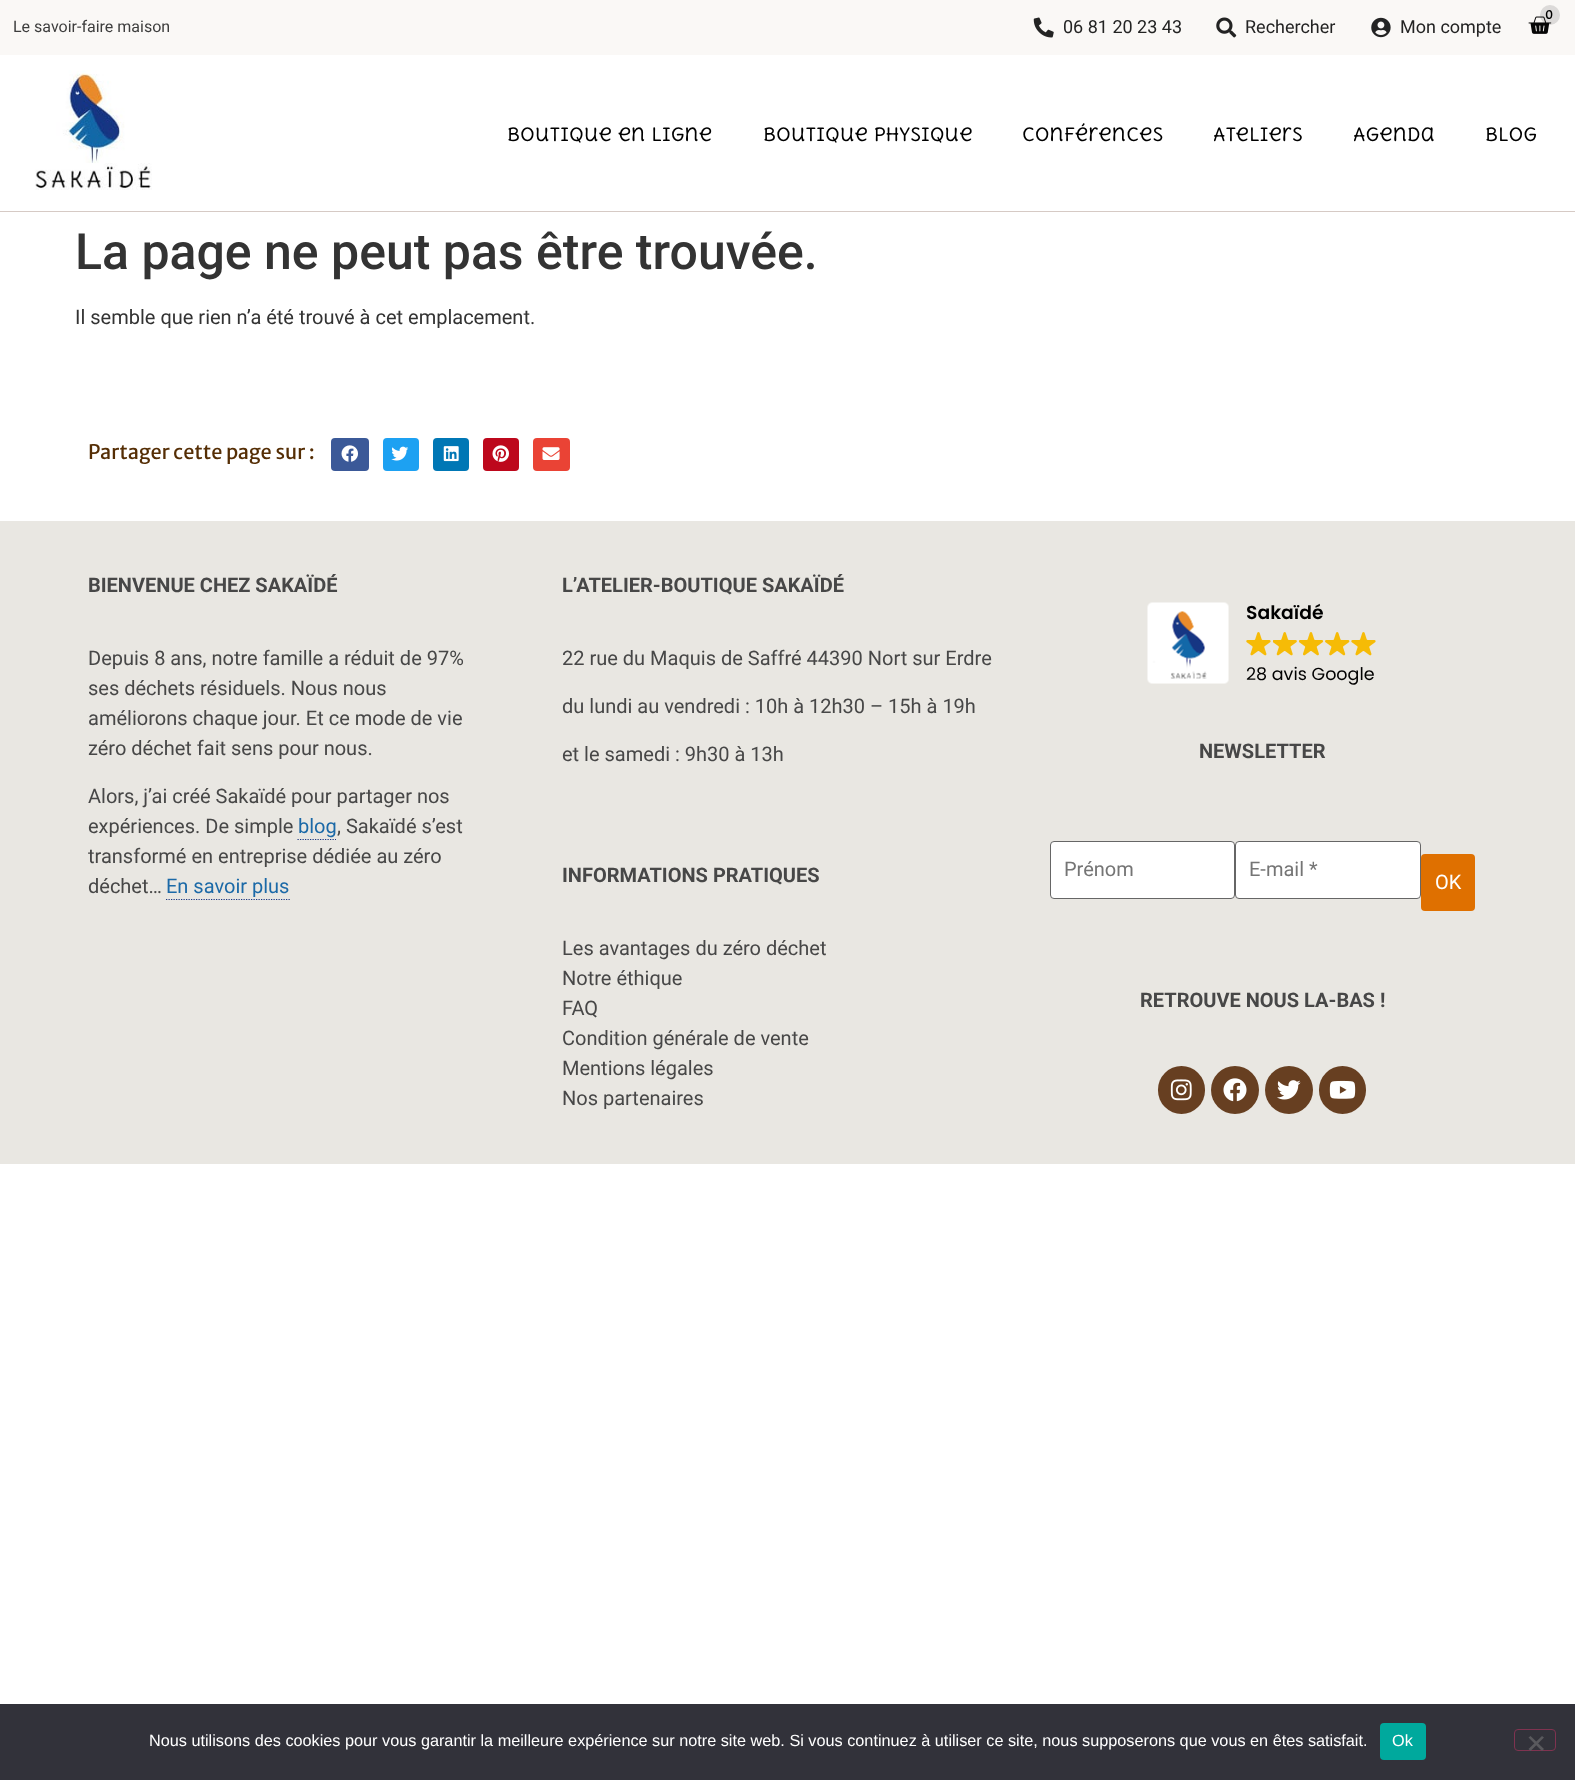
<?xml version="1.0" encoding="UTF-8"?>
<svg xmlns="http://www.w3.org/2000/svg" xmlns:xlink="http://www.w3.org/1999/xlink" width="1575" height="1780">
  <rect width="100%" height="100%" fill="#ffffff" />
  <rect width="1575" height="55" fill="#faf8f6" />
  <image x="1528" y="16" width="24" height="18" xlink:href="image1.png" />
  <circle cx="1550" cy="15" r="10" fill="#060606" fill-opacity="0.12" />
  <image x="1033" y="17" width="21" height="21" xlink:href="image2.png" />
  <image x="1216" y="17" width="21" height="21" xlink:href="image3.png" />
  <image x="1371" y="17" width="20" height="21" xlink:href="image4.png" />
  <rect y="211" width="1575" height="1" fill="#d6cac5" />
  <image x="35" y="70" width="117" height="120" xlink:href="image5.png" />
  <rect x="331" y="438" width="38" height="33" rx="4" fill="#3b5998" />
  <image x="341" y="445" width="17" height="17" xlink:href="image6.png" />
  <rect x="383" y="438" width="36" height="33" rx="4" fill="#1da1f2" />
  <image x="391" y="446" width="18" height="15" xlink:href="image7.png" />
  <rect x="433" y="438" width="36" height="33" rx="4" fill="#0077b5" />
  <image x="443" y="446" width="16" height="16" xlink:href="image8.png" />
  <rect x="483" y="438" width="36" height="33" rx="4" fill="#bd081c" />
  <image x="492" y="445" width="17" height="17" xlink:href="image9.png" />
  <rect x="533" y="438" width="37" height="33" rx="4" fill="#ea4335" />
  <image x="542" y="447" width="18" height="13" xlink:href="image10.png" />
  <rect y="521" width="1575" height="643" fill="#e9e7e2" />
  <path d="M 297.5 839.5 h 38.5" fill="none" stroke="#1d3982" stroke-width="1.2" stroke-dasharray="1.25 1.25" />
  <path d="M 166 899.5 h 124" fill="none" stroke="#1d3982" stroke-width="1.2" stroke-dasharray="1.25 1.25" />
  <image x="1147" y="602" width="82" height="82" xlink:href="image11.png" />
  <image x="1246" y="632" width="25" height="24" xlink:href="image12.png" />
  <image x="1273" y="632" width="24" height="24" xlink:href="image13.png" />
  <image x="1299" y="632" width="25" height="24" xlink:href="image14.png" />
  <image x="1325" y="632" width="25" height="24" xlink:href="image15.png" />
  <image x="1351" y="632" width="25" height="24" xlink:href="image12.png" />
  <rect x="1050.5" y="841.5" width="184" height="57" rx="3.5" fill="#ffffff" stroke="#666666" />
  <rect x="1235.5" y="841.5" width="185" height="57" rx="3.5" fill="#ffffff" stroke="#666666" />
  <rect x="1421" y="854" width="54" height="57" rx="4" fill="#df7000" />
  <rect x="1158" y="1066" width="47" height="48" rx="23.5" fill="#673f21" />
  <image x="1170" y="1079" width="22" height="22" xlink:href="image16.png" />
  <circle cx="1235" cy="1090" r="24" fill="#673f21" />
  <image x="1223" y="1078" width="24" height="24" xlink:href="image17.png" />
  <circle cx="1289" cy="1090" r="24" fill="#673f21" />
  <image x="1277" y="1080" width="24" height="20" xlink:href="image18.png" />
  <rect x="1319" y="1066" width="47" height="48" rx="23.5" fill="#673f21" />
  <image x="1329" y="1080" width="27" height="19" xlink:href="image19.png" />
  <rect y="1704" width="1575" height="76" fill="#32323a" />
  <rect x="1380" y="1723" width="46" height="37" rx="4" fill="#00a99d" />
  <rect x="1514.5" y="1729.5" width="41" height="21" rx="3.5" fill="none" stroke="#7f3350" />
  <path d="M 1542 1736 l 2 1.5 l -13.5 13.5 l -2 -2 z" fill="#59595d" />
  <path d="M 1528.5 1737.5 l 2 -1.5 l 13.5 13 l -2 2 z" fill="#59595d" />
  <text x="1545" y="19" style="font-family: Merriweather Sans; font-size: 12px; fill: #000000">0</text>
  <text x="13" y="32" style="font-family: Roboto; font-size: 16px; fill: #3d3d3d">Le savoir-faire maison</text>
  <text x="1063" y="33" style="font-family: Roboto; font-size: 18px; fill: #232323">06 81 20 23 43</text>
  <text x="1245" y="33" style="font-family: Roboto; font-size: 18px; fill: #232323">Rechercher</text>
  <text x="1400" y="33" style="font-family: Roboto; font-size: 18px; fill: #232323">Mon compte</text>
  <text x="507" y="141" style="font-family: Delius Unicase; font-size: 18px; fill: #000000">Boutique en ligne</text>
  <text x="763" y="141" style="font-family: Delius Unicase; font-size: 18px; fill: #000000">Boutique physique</text>
  <text x="1022" y="141" style="font-family: Delius Unicase; font-size: 18px; fill: #000000">Conférences</text>
  <text x="1213" y="141" style="font-family: Delius Unicase; font-size: 18px; fill: #000000">Ateliers</text>
  <text x="1353" y="141" style="font-family: Delius Unicase; font-size: 18px; fill: #000000">Agenda</text>
  <text x="1485" y="141" style="font-family: Delius Unicase; font-size: 18px; fill: #000000">Blog</text>
  <text x="75" y="269" style="font-family: Roboto; font-size: 50px; font-weight: 500; fill: #333333">La page ne peut pas être trouvée.</text>
  <text x="75" y="324" style="font-family: Roboto; font-size: 20px; fill: #333333">Il semble que rien n’a été trouvé à cet emplacement.</text>
  <text x="88" y="459" style="font-family: Merriweather Sans; font-size: 20px; fill: #552e05">Partager cette page sur :</text>
  <text x="88" y="592" style="font-family: Roboto; font-size: 20px; font-weight: bold; fill: #474747">BIENVENUE CHEZ SAKAÏDÉ</text>
  <text x="88" y="665" style="font-family: Roboto; font-size: 20px; fill: #474747">Depuis 8 ans, notre famille a réduit de 97%</text>
  <text x="88" y="695" style="font-family: Roboto; font-size: 20px; fill: #474747">ses déchets résiduels. Nous nous</text>
  <text x="88" y="725" style="font-family: Roboto; font-size: 20px; fill: #474747">améliorons chaque jour. Et ce mode de vie</text>
  <text x="88" y="755" style="font-family: Roboto; font-size: 20px; fill: #474747">zéro déchet fait sens pour nous.</text>
  <text x="88" y="803" style="font-family: Roboto; font-size: 20px; fill: #474747">Alors, j’ai créé Sakaïdé pour partager nos</text>
  <text x="88" y="833" style="font-family: Roboto; font-size: 20px; fill: #474747">expériences. De simple</text>
  <text x="298" y="833" style="font-family: Roboto; font-size: 20px; fill: #1b69a7">blog</text>
  <text x="337" y="833" style="font-family: Roboto; font-size: 20px; fill: #474747">, Sakaïdé s’est</text>
  <text x="88" y="863" style="font-family: Roboto; font-size: 20px; fill: #474747">transformé en entreprise dédiée au zéro</text>
  <text x="88" y="893" style="font-family: Roboto; font-size: 20px; fill: #474747">déchet…</text>
  <text x="166" y="893" style="font-family: Roboto; font-size: 20px; fill: #1b69a7">En savoir plus</text>
  <text x="562" y="592" style="font-family: Roboto; font-size: 20px; font-weight: bold; fill: #474747">L’ATELIER-BOUTIQUE SAKAÏDÉ</text>
  <text x="562" y="665" style="font-family: Roboto; font-size: 20px; fill: #474747">22 rue du Maquis de Saffré 44390 Nort sur Erdre</text>
  <text x="562" y="713" style="font-family: Roboto; font-size: 20px; fill: #474747">du lundi au vendredi : 10h à 12h30 – 15h à 19h</text>
  <text x="562" y="761" style="font-family: Roboto; font-size: 20px; fill: #474747">et le samedi : 9h30 à 13h</text>
  <text x="562" y="882" style="font-family: Roboto; font-size: 20px; font-weight: bold; fill: #474747">INFORMATIONS PRATIQUES</text>
  <text x="562" y="955" style="font-family: Roboto; font-size: 20px; fill: #474747">Les avantages du zéro déchet</text>
  <text x="562" y="985" style="font-family: Roboto; font-size: 20px; fill: #474747">Notre éthique</text>
  <text x="562" y="1015" style="font-family: Roboto; font-size: 20px; fill: #474747">FAQ</text>
  <text x="562" y="1045" style="font-family: Roboto; font-size: 20px; fill: #474747">Condition générale de vente</text>
  <text x="562" y="1075" style="font-family: Roboto; font-size: 20px; fill: #474747">Mentions légales</text>
  <text x="562" y="1105" style="font-family: Roboto; font-size: 20px; fill: #474747">Nos partenaires</text>
  <text x="1246" y="619" style="font-family: Poppins; font-size: 18.75px; font-weight: 600; fill: #000000">Sakaïdé</text>
  <text x="1246" y="680" style="font-family: Poppins; font-size: 17.5px; fill: #000000">28 avis Google</text>
  <text x="1199" y="758" style="font-family: Roboto; font-size: 20px; font-weight: bold; fill: #474747">NEWSLETTER</text>
  <text x="1064" y="876" style="font-family: Roboto; font-size: 20px; fill: #757575">Prénom</text>
  <text x="1249" y="876" style="font-family: Roboto; font-size: 20px; fill: #757575">E-mail *</text>
  <text x="1435" y="889" style="font-family: Roboto; font-size: 20px; fill: #ffffff">OK</text>
  <text x="1140" y="1007" style="font-family: Roboto; font-size: 20px; font-weight: bold; fill: #474747">RETROUVE NOUS LA-BAS !</text>
  <text x="149" y="1746" style="font-family: Liberation Sans; font-size: 16.25px; fill: #ffffff">Nous utilisons des cookies pour vous garantir la meilleure expérience sur notre site web. Si vous continuez à utiliser ce site, nous supposerons que vous en êtes satisfait.</text>
  <text x="1392" y="1746" style="font-family: Liberation Sans; font-size: 16.25px; fill: #ffffff">Ok</text>
</svg>
